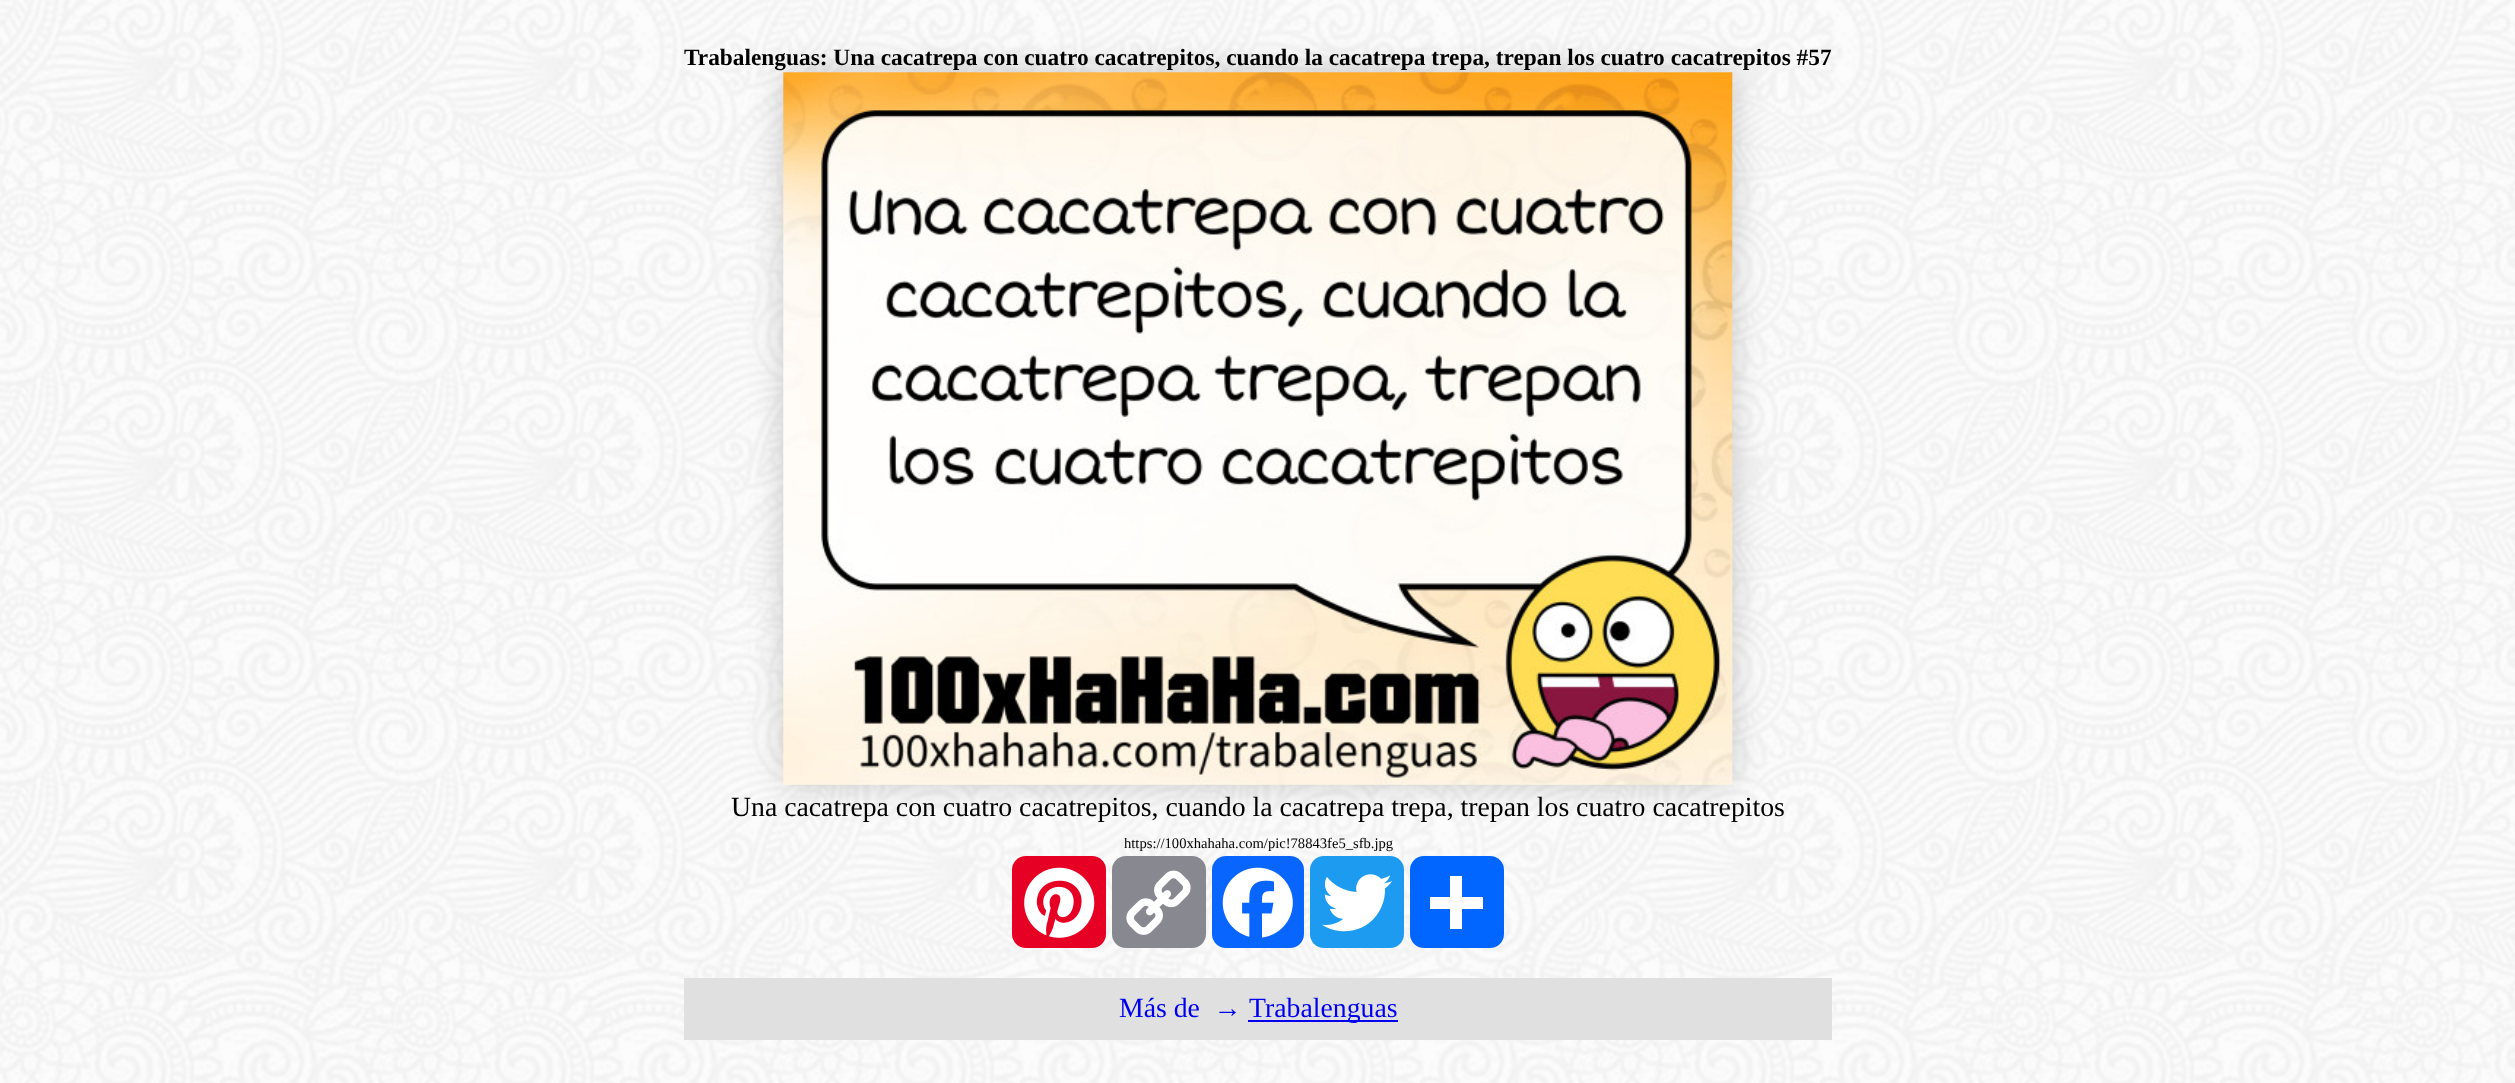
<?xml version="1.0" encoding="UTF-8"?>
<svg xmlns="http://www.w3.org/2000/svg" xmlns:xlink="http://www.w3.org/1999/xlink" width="2515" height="1083">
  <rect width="100%" height="100%" fill="#ffffff" />
  <image x="0" y="0" width="2515" height="1083" xlink:href="image1.png" />
  <rect x="784" y="72" width="948" height="712" fill="#000000" fill-opacity="0.2" filter="blur(17px)" />
  <image x="783" y="72" width="950" height="713" xlink:href="image2.png" />
  <rect x="1012" y="856" width="94" height="92" rx="14" fill="#e60023" />
  <image x="1024" y="867" width="71" height="71" xlink:href="image3.png" />
  <rect x="1112" y="856" width="94" height="92" rx="14" fill="#888990" />
  <image x="1126" y="870" width="65" height="65" xlink:href="image4.png" />
  <rect x="1212" y="856" width="92" height="92" rx="14" fill="#0866ff" />
  <image x="1222" y="867" width="71" height="71" xlink:href="image5.png" />
  <rect x="1310" y="856" width="94" height="92" rx="14" fill="#1d9bf0" />
  <image x="1322" y="874" width="70" height="58" xlink:href="image6.png" />
  <rect x="1410" y="856" width="94" height="92" rx="14" fill="#0166ff" />
  <rect x="1450" y="876" width="12" height="53" fill="#ffffff" />
  <rect x="1430" y="897" width="53" height="12" fill="#ffffff" />
  <rect x="684" y="978" width="1148" height="62" fill="#e0e0e0" />
  <rect x="1248" y="1020" width="150" height="2" fill="#0000ee" />
  <text x="684" y="65" style="font-family: Liberation Serif; font-size: 23.35px; font-weight: bold; fill: #000000">Trabalenguas: Una cacatrepa con cuatro cacatrepitos, cuando la cacatrepa trepa, trepan los cuatro cacatrepitos #57</text>
  <text x="731" y="816" style="font-family: Liberation Serif; font-size: 27.75px; fill: #000000">Una cacatrepa con cuatro cacatrepitos, cuando la cacatrepa trepa, trepan los cuatro cacatrepitos</text>
  <text x="1124" y="848" style="font-family: Liberation Serif; font-size: 14.6px; fill: #000000">https://100xhahaha.com/pic!78843fe5_sfb.jpg</text>
  <text x="1119" y="1017" style="font-family: Liberation Serif; font-size: 27.75px; fill: #0000ee" xml:space="preserve">Más de  →</text>
  <text x="1249" y="1017" style="font-family: Liberation Serif; font-size: 27.75px; fill: #0000ee">Trabalenguas</text>
</svg>
